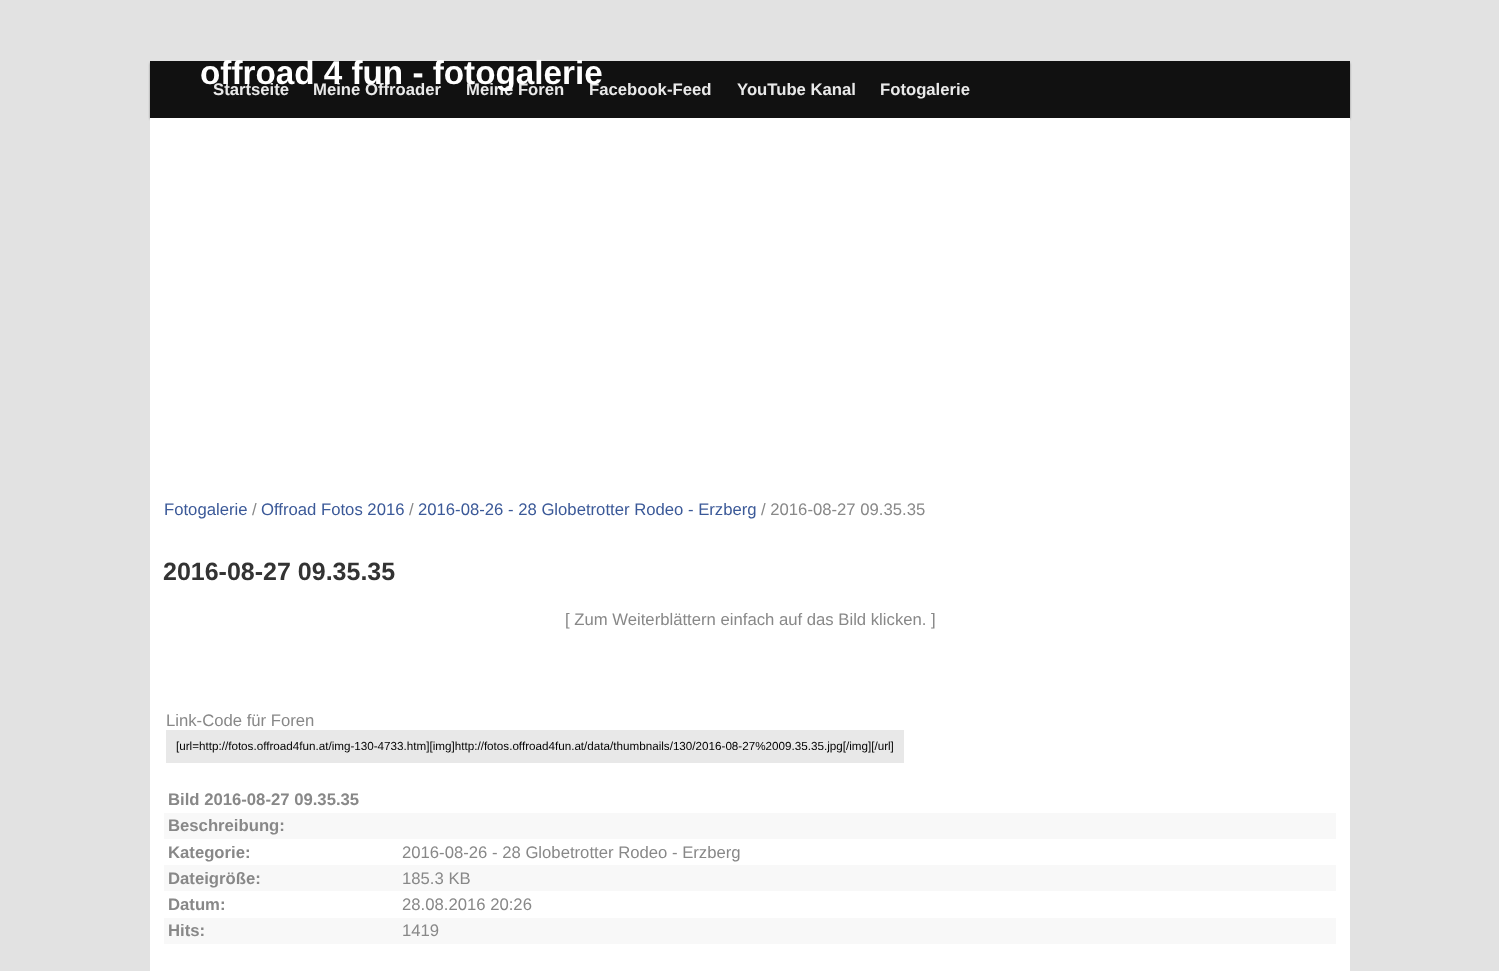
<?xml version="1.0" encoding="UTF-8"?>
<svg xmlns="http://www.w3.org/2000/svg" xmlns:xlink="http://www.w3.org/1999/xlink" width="1499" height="971">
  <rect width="100%" height="100%" fill="#e2e2e2" />
  <rect x="150" y="63" width="1200" height="56" fill="#000000" fill-opacity="0.4" filter="blur(1px)" />
  <rect x="150" y="61" width="1200" height="57" fill="#111111" />
  <rect x="150" y="118" width="1200" height="853" fill="#ffffff" />
  <rect x="166" y="730" width="738" height="33" fill="#e8e8e8" />
  <rect x="164" y="813" width="1172" height="26" fill="#f8f8f8" />
  <rect x="164" y="865" width="1172" height="26" fill="#f8f8f8" />
  <rect x="164" y="918" width="1172" height="26" fill="#f8f8f8" />
  <text x="213" y="95" style="font-family: Liberation Sans; font-size: 16.7px; font-weight: bold; fill: #e9e9e9">Startseite</text>
  <text x="313" y="95" style="font-family: Liberation Sans; font-size: 16.7px; font-weight: bold; fill: #e9e9e9">Meine Offroader</text>
  <text x="466" y="95" style="font-family: Liberation Sans; font-size: 16.7px; font-weight: bold; fill: #e9e9e9">Meine Foren</text>
  <text x="589" y="95" style="font-family: Liberation Sans; font-size: 16.7px; font-weight: bold; fill: #e9e9e9">Facebook-Feed</text>
  <text x="200" y="84" style="font-family: Liberation Sans; font-size: 33.25px; font-weight: bold; fill: #ffffff">offroad 4 fun - fotogalerie</text>
  <text x="737" y="95" style="font-family: Liberation Sans; font-size: 16.7px; font-weight: bold; fill: #e9e9e9">YouTube Kanal</text>
  <text x="880" y="95" style="font-family: Liberation Sans; font-size: 16.7px; font-weight: bold; fill: #e9e9e9">Fotogalerie</text>
  <text x="164" y="515" style="font-family: Liberation Sans; font-size: 16.7px; fill: #3b5998">Fotogalerie</text>
  <text x="252" y="515" style="font-family: Liberation Sans; font-size: 16.7px; fill: #888888">/</text>
  <text x="261" y="515" style="font-family: Liberation Sans; font-size: 16.7px; fill: #3b5998">Offroad Fotos 2016</text>
  <text x="409" y="515" style="font-family: Liberation Sans; font-size: 16.7px; fill: #888888">/</text>
  <text x="418" y="515" style="font-family: Liberation Sans; font-size: 16.7px; fill: #3b5998">2016-08-26 - 28 Globetrotter Rodeo - Erzberg</text>
  <text x="761" y="515" style="font-family: Liberation Sans; font-size: 16.7px; fill: #888888">/ 2016-08-27 09.35.35</text>
  <text x="163" y="580" style="font-family: Liberation Sans; font-size: 25px; font-weight: bold; fill: #333333">2016-08-27 09.35.35</text>
  <text x="565" y="625" style="font-family: Liberation Sans; font-size: 16.7px; fill: #888888">[ Zum Weiterblättern einfach auf das Bild klicken. ]</text>
  <text x="166" y="726" style="font-family: Liberation Sans; font-size: 16.7px; fill: #888888">Link-Code für Foren</text>
  <text x="176" y="750" style="font-family: Liberation Sans; font-size: 11.67px; fill: #000000">[url=http://fotos.offroad4fun.at/img-130-4733.htm][img]http://fotos.offroad4fun.at/data/thumbnails/130/2016-08-27%2009.35.35.jpg[/img][/url]</text>
  <text x="168" y="805" style="font-family: Liberation Sans; font-size: 16.7px; font-weight: bold; fill: #888888">Bild 2016-08-27 09.35.35</text>
  <text x="168" y="831" style="font-family: Liberation Sans; font-size: 16.7px; font-weight: bold; fill: #888888">Beschreibung:</text>
  <text x="168" y="858" style="font-family: Liberation Sans; font-size: 16.7px; font-weight: bold; fill: #888888">Kategorie:</text>
  <text x="402" y="858" style="font-family: Liberation Sans; font-size: 16.7px; fill: #888888">2016-08-26 - 28 Globetrotter Rodeo - Erzberg</text>
  <text x="168" y="884" style="font-family: Liberation Sans; font-size: 16.7px; font-weight: bold; fill: #888888">Dateigröße:</text>
  <text x="402" y="884" style="font-family: Liberation Sans; font-size: 16.7px; fill: #888888">185.3 KB</text>
  <text x="168" y="910" style="font-family: Liberation Sans; font-size: 16.7px; font-weight: bold; fill: #888888">Datum:</text>
  <text x="402" y="910" style="font-family: Liberation Sans; font-size: 16.7px; fill: #888888">28.08.2016 20:26</text>
  <text x="168" y="936" style="font-family: Liberation Sans; font-size: 16.7px; font-weight: bold; fill: #888888">Hits:</text>
  <text x="402" y="936" style="font-family: Liberation Sans; font-size: 16.7px; fill: #888888">1419</text>
</svg>
